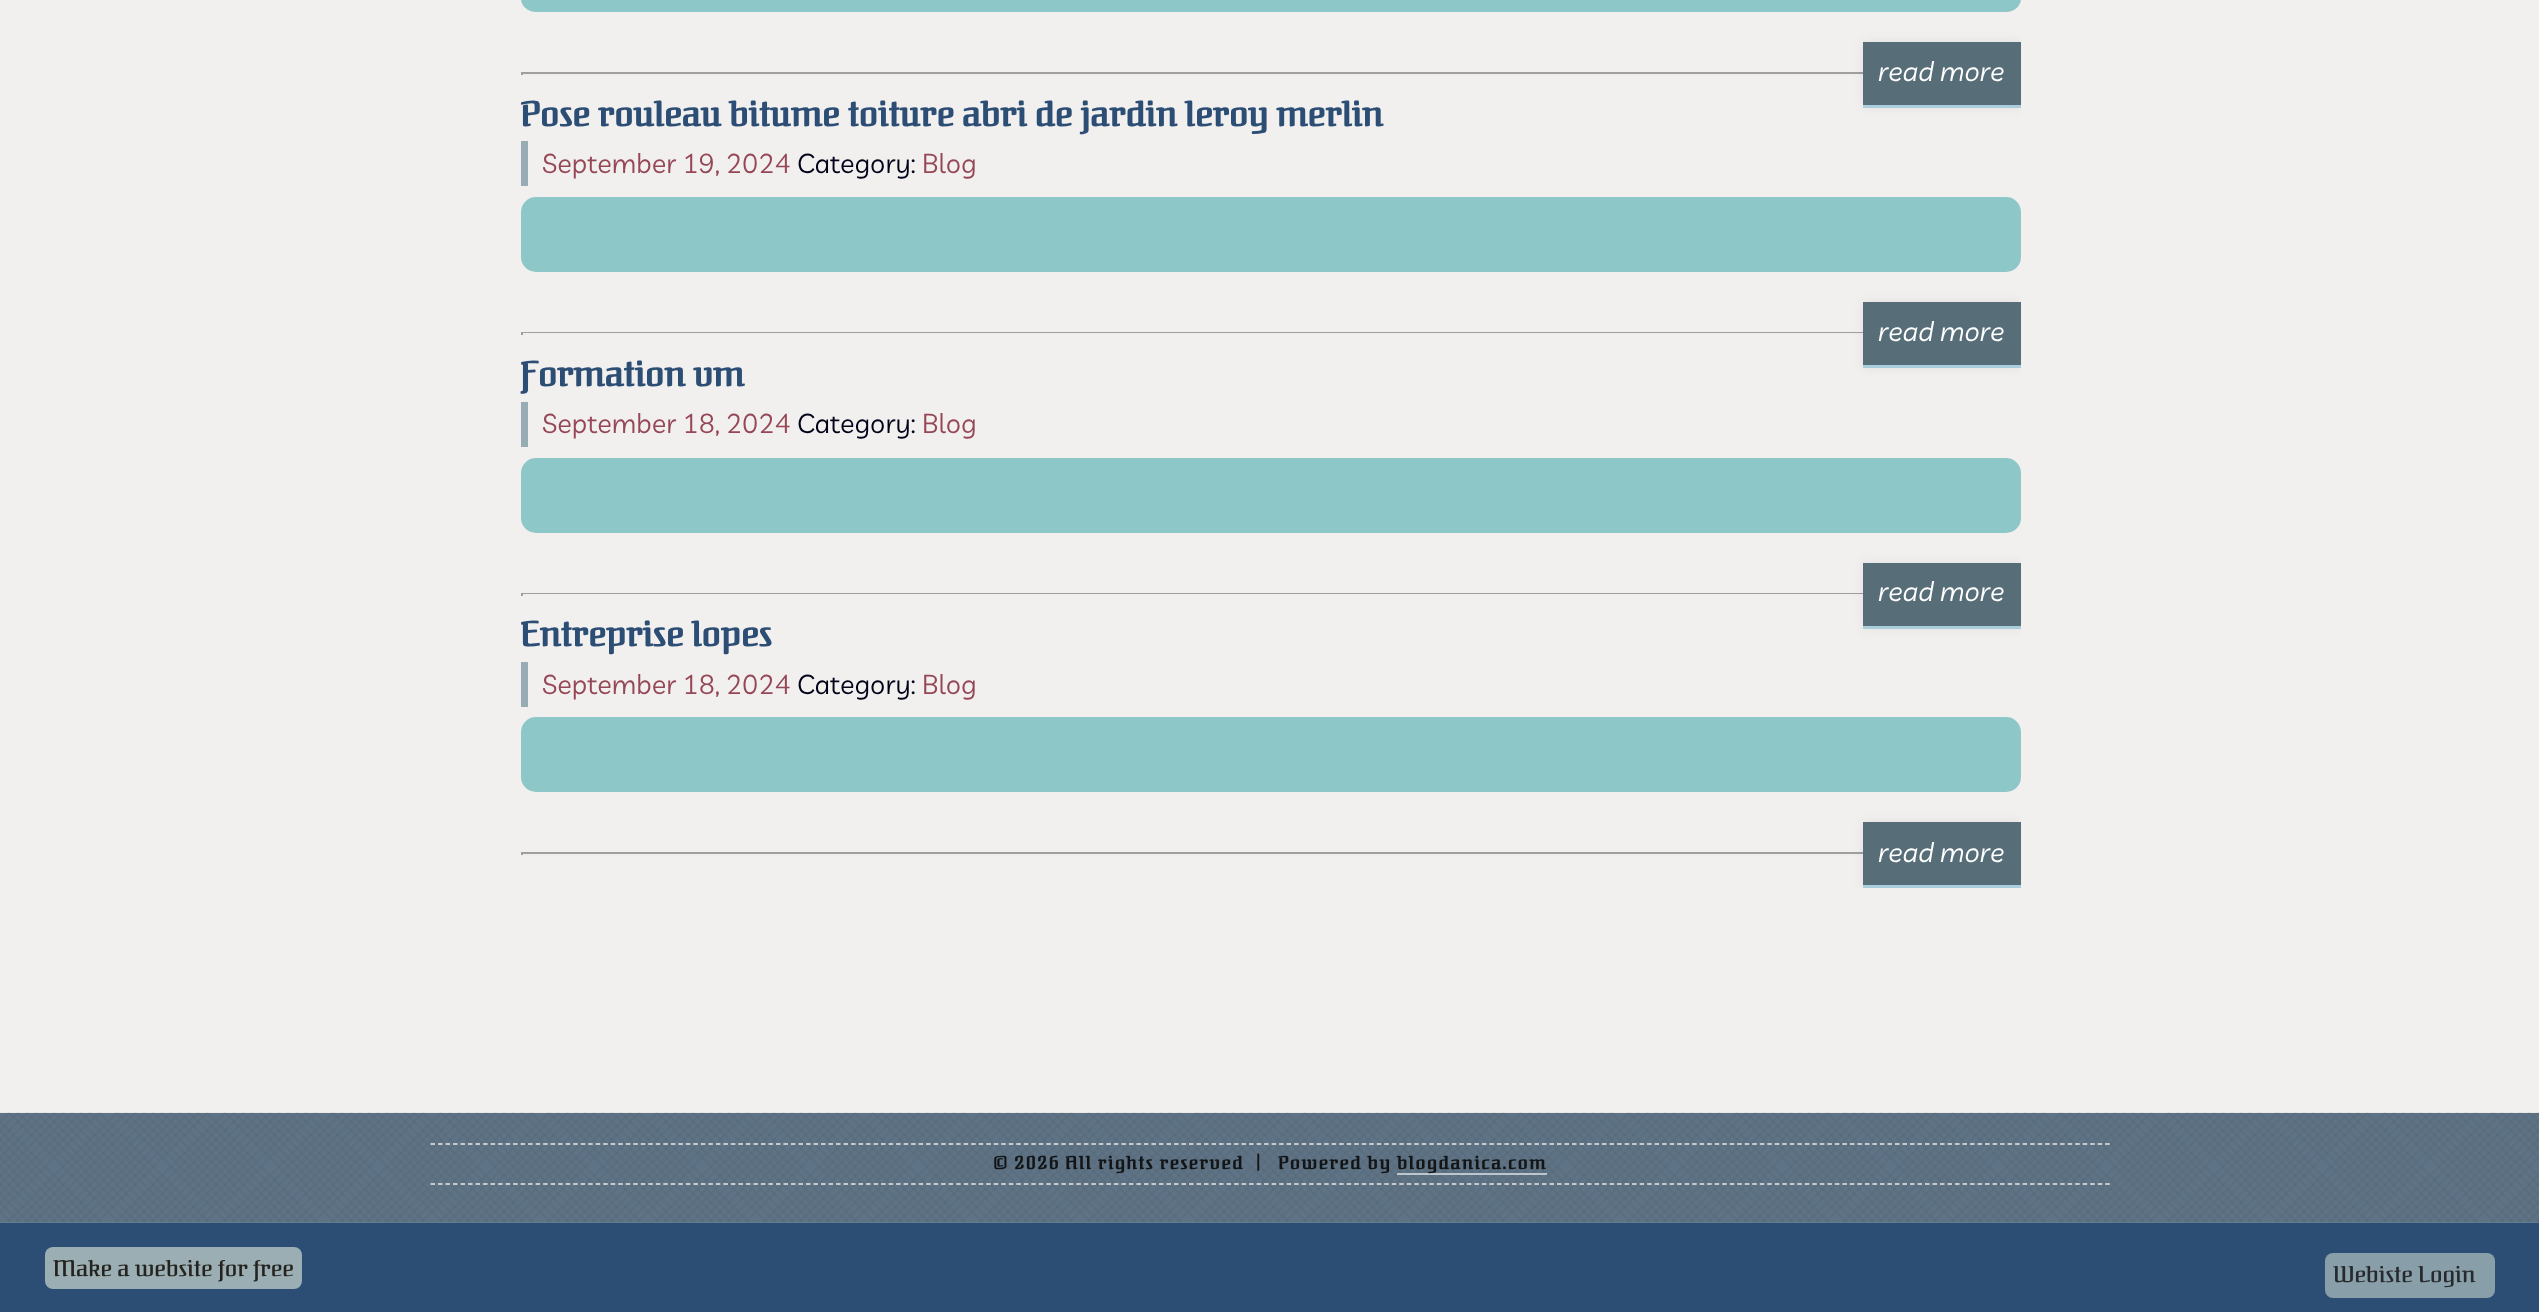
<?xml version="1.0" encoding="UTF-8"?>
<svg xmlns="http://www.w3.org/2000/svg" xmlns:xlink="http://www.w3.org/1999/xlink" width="2539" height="1312">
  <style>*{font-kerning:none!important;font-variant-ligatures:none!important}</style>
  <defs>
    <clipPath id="clip1"><rect x="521" y="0" width="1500" height="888" /></clipPath>
  </defs>
  <rect width="100%" height="100%" fill="#f1f0ef" />
  <rect x="521" y="72" width="1342" height="2" fill="#9f9f9f" />
  <rect x="521" y="74" width="1342" height="2" fill="#eeeeee" />
  <rect x="521" y="72" width="2" height="3" fill="#9f9f9f" />
  <rect x="521" y="-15" width="1500" height="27" rx="15" fill="#8ec7c7" />
  <g clip-path="url(#clip1)">
    <rect x="1863" y="42" width="158" height="66" fill="#000000" fill-opacity="0.06" filter="blur(6px)" />
  </g>
  <rect x="1863" y="42" width="158" height="63" fill="#576e78" />
  <rect x="1863" y="105" width="158" height="3" fill="#abcedc" />
  <rect x="521" y="141" width="7" height="45" fill="#98adb3" />
  <rect x="521" y="197" width="1500" height="75" rx="15" fill="#8ec7c7" />
  <rect x="521" y="332" width="1342" height="1" fill="#9f9f9f" />
  <rect x="521" y="333" width="1342" height="2" fill="#eeeeee" />
  <g clip-path="url(#clip1)">
    <rect x="1863" y="302" width="158" height="66" fill="#000000" fill-opacity="0.06" filter="blur(6px)" />
  </g>
  <rect x="1863" y="302" width="158" height="63" fill="#576e78" />
  <rect x="1863" y="365" width="158" height="3" fill="#abcedc" />
  <rect x="521" y="332" width="2" height="3" fill="#9f9f9f" />
  <rect x="521" y="402" width="7" height="45" fill="#98adb3" />
  <rect x="521" y="458" width="1500" height="75" rx="15" fill="#8ec7c7" />
  <rect x="521" y="593" width="1342" height="1" fill="#9f9f9f" />
  <rect x="521" y="594" width="1342" height="2" fill="#eeeeee" />
  <g clip-path="url(#clip1)">
    <rect x="1863" y="563" width="158" height="66" fill="#000000" fill-opacity="0.06" filter="blur(6px)" />
  </g>
  <rect x="1863" y="563" width="158" height="63" fill="#576e78" />
  <rect x="1863" y="626" width="158" height="3" fill="#abcedc" />
  <rect x="521" y="593" width="2" height="3" fill="#9f9f9f" />
  <rect x="521" y="662" width="7" height="45" fill="#98adb3" />
  <rect x="521" y="717" width="1500" height="75" rx="15" fill="#8ec7c7" />
  <rect x="521" y="852" width="1342" height="2" fill="#9f9f9f" />
  <rect x="521" y="854" width="1342" height="2" fill="#eeeeee" />
  <g clip-path="url(#clip1)">
    <rect x="1863" y="822" width="158" height="66" fill="#000000" fill-opacity="0.06" filter="blur(6px)" />
  </g>
  <rect x="1863" y="822" width="158" height="63" fill="#576e78" />
  <rect x="1863" y="885" width="158" height="3" fill="#abcedc" />
  <rect x="521" y="852" width="2" height="3" fill="#9f9f9f" />
  <rect y="1113" width="2539" height="110" fill="#647a8d" />
  <image x="0" y="1112" width="2539" height="110" xlink:href="image1.png" />
  <path d="M 430.5 1144 h 1680" fill="none" stroke="#ece9e4" stroke-width="1.5" stroke-dasharray="4.5 3.01" />
  <path d="M 430.5 1184 h 1680" fill="none" stroke="#ece9e4" stroke-width="1.5" stroke-dasharray="4.5 3.01" />
  <rect x="1397" y="1173" width="150" height="2" fill="#ffffff" fill-opacity="0.6" />
  <rect y="1223" width="2539" height="89" fill="#2c4d74" />
  <rect x="45" y="1247" width="257" height="42" rx="8" fill="#9baeb4" />
  <rect x="2325" y="1253" width="170" height="45" rx="8" fill="#889ea9" />
  <text x="1878" y="81" style="font-family: Livvic; font-size: 27px; font-style: italic; fill: #ffffff">read more</text>
  <text x="520" y="126" style="font-family: Federant; font-size: 34.5px; font-weight: bold; fill: #2c4d74">Pose rouleau bitume toiture abri de jardin leroy merlin</text>
  <text x="542" y="173" style="font-family: Livvic; font-size: 27px; fill: #964756">September 19, 2024</text>
  <text x="797" y="173" style="font-family: Livvic; font-size: 27px; fill: #010118">Category:</text>
  <text x="922" y="173" style="font-family: Livvic; font-size: 27px; fill: #964756">Blog</text>
  <text x="1878" y="341" style="font-family: Livvic; font-size: 27px; font-style: italic; fill: #ffffff">read more</text>
  <text x="520" y="386" style="font-family: Federant; font-size: 34.5px; font-weight: bold; fill: #2c4d74">Formation vm</text>
  <text x="542" y="433" style="font-family: Livvic; font-size: 27px; fill: #964756">September 18, 2024</text>
  <text x="797" y="433" style="font-family: Livvic; font-size: 27px; fill: #010118">Category:</text>
  <text x="922" y="433" style="font-family: Livvic; font-size: 27px; fill: #964756">Blog</text>
  <text x="1878" y="601" style="font-family: Livvic; font-size: 27px; font-style: italic; fill: #ffffff">read more</text>
  <text x="520" y="646" style="font-family: Federant; font-size: 34.5px; font-weight: bold; fill: #2c4d74">Entreprise lopes</text>
  <text x="542" y="694" style="font-family: Livvic; font-size: 27px; fill: #964756">September 18, 2024</text>
  <text x="797" y="694" style="font-family: Livvic; font-size: 27px; fill: #010118">Category:</text>
  <text x="922" y="694" style="font-family: Livvic; font-size: 27px; fill: #964756">Blog</text>
  <text x="1878" y="862" style="font-family: Livvic; font-size: 27px; font-style: italic; fill: #ffffff">read more</text>
  <text x="993" y="1169" style="font-family: Federant; font-size: 18px; font-weight: bold; letter-spacing: 1.5px; fill: #121415">© 2026 All rights reserved</text>
  <text x="1256" y="1168" style="font-family: Federant; font-size: 18px; font-weight: bold; letter-spacing: 1.5px; fill: #121415">|</text>
  <text x="1278" y="1169" style="font-family: Federant; font-size: 18px; font-weight: bold; letter-spacing: 1.5px; fill: #121415">Powered by</text>
  <text x="1397" y="1169" style="font-family: Federant; font-size: 18px; font-weight: bold; letter-spacing: 1.5px; fill: #121415">blogdanica.com</text>
  <text x="53" y="1276" style="font-family: Federant; font-size: 22.5px; fill: #25231e">Make a website for free</text>
  <text x="2333" y="1282" style="font-family: Federant; font-size: 22.5px; fill: #262a2d">Webiste Login</text>
</svg>
